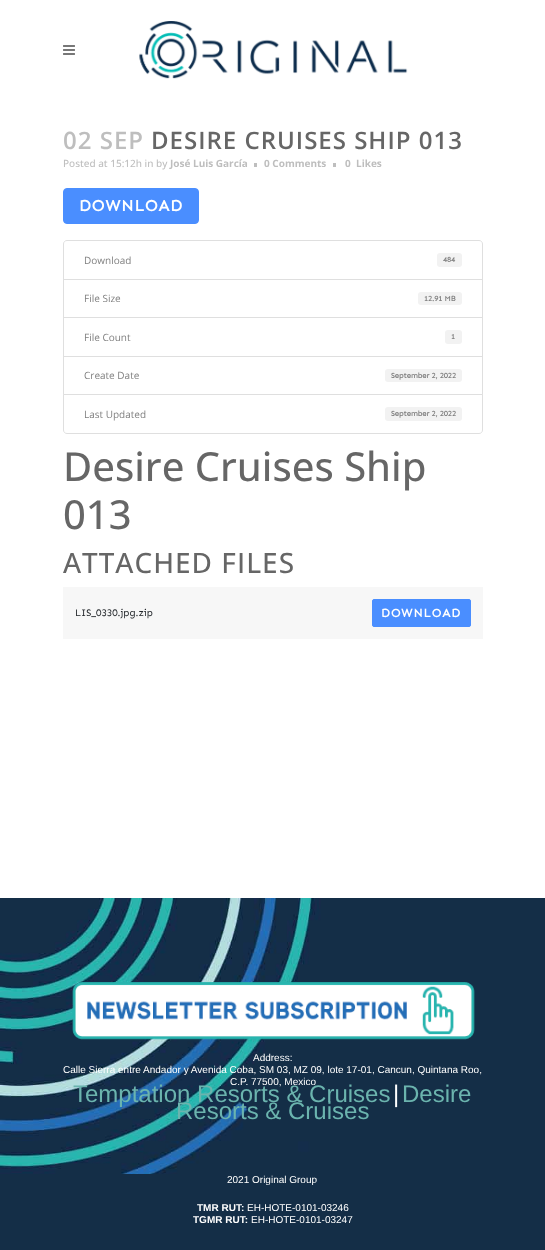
<?xml version="1.0" encoding="UTF-8"?>
<svg xmlns="http://www.w3.org/2000/svg" xmlns:xlink="http://www.w3.org/1999/xlink" width="545" height="1250">
  <rect width="100%" height="100%" fill="#ffffff" />
  <image x="63" y="45" width="12" height="10" xlink:href="image1.png" />
  <image x="139" y="21" width="269" height="58" xlink:href="image2.png" />
  <rect x="254" y="163" width="3" height="4" fill="#bebebe" />
  <rect x="333" y="163" width="3" height="4" fill="#bebebe" />
  <rect x="63.5" y="188.5" width="135" height="35" rx="3.5" fill="#4a8eff" stroke="#4a8eff" />
  <path d="M 67 240.5 h 412 c 2 0 3.5 1.5 3.5 3.5 v 35.5 h -419 v -35.5 c 0 -2 1.5 -3.5 3.5 -3.5 z" fill="none" stroke="#dfdfdf" />
  <rect x="437" y="253" width="25" height="14" rx="3" fill="#f2f2f2" />
  <rect x="63.5" y="279.5" width="419" height="38" fill="none" stroke="#dfdfdf" />
  <rect x="418" y="292" width="44" height="13" rx="3" fill="#f2f2f2" />
  <rect x="63.5" y="317.5" width="419" height="39" fill="none" stroke="#dfdfdf" />
  <rect x="445" y="330" width="17" height="14" rx="3" fill="#f2f2f2" />
  <rect x="63.5" y="356.5" width="419" height="38" fill="none" stroke="#dfdfdf" />
  <rect x="385" y="369" width="77" height="13" rx="3" fill="#f2f2f2" />
  <path d="M 63.5 394.5 h 419 v 35.5 c 0 2 -1.5 3.5 -3.5 3.5 h -412 c -2 0 -3.5 -1.5 -3.5 -3.5 z" fill="#ffffff" stroke="#dfdfdf" />
  <rect x="385" y="407" width="77" height="14" rx="3" fill="#f2f2f2" />
  <rect x="63" y="587" width="420" height="52" fill="#f7f7f7" />
  <rect x="372.5" y="599.5" width="98" height="27" rx="1.5" fill="#4a8eff" stroke="#4a8eff" />
  <image x="0" y="898" width="545" height="276" xlink:href="image3.png" />
  <image x="72" y="982" width="403" height="58" xlink:href="image4.png" />
  <rect y="1174" width="545" height="76" fill="#142e47" />
  <text x="63" y="149" style="font-family: Open Sans; font-size: 24px; font-weight: 600; letter-spacing: 1px; fill: #bebebe">02 SEP</text>
  <text x="151" y="149" style="font-family: Open Sans; font-size: 24px; font-weight: 600; letter-spacing: 1px; fill: #666666">DESIRE CRUISES SHIP 013</text>
  <text x="63" y="167" style="font-family: Open Sans; font-size: 10px; font-weight: 500; fill: #bebebe">Posted at 15:12h in by</text>
  <text x="170" y="167" style="font-family: Open Sans; font-size: 10px; font-weight: bold; fill: #bebebe">José Luis García</text>
  <text x="264" y="167" style="font-family: Open Sans; font-size: 10px; font-weight: bold; fill: #bebebe">0 Comments</text>
  <text x="345" y="167" style="font-family: Open Sans; font-size: 10px; font-weight: bold; fill: #bebebe">0</text>
  <text x="356" y="167" style="font-family: Open Sans; font-size: 10px; font-weight: bold; fill: #bebebe">Likes</text>
  <text x="79" y="211" style="font-family: Sen; font-size: 16px; font-weight: bold; letter-spacing: 1px; fill: #ffffff">DOWNLOAD</text>
  <text x="84" y="264" style="font-family: Open Sans; font-size: 10px; fill: #818181">Download</text>
  <text x="443" y="262" style="font-family: Sen; font-size: 7.5px; font-weight: bold; fill: #818181">484</text>
  <text x="84" y="302" style="font-family: Open Sans; font-size: 10px; fill: #818181">File Size</text>
  <text x="424" y="301" style="font-family: Sen; font-size: 7.5px; font-weight: bold; fill: #818181">12.91 MB</text>
  <text x="84" y="341" style="font-family: Open Sans; font-size: 10px; fill: #818181">File Count</text>
  <text x="451" y="339" style="font-family: Sen; font-size: 7.5px; font-weight: bold; fill: #818181">1</text>
  <text x="84" y="379" style="font-family: Open Sans; font-size: 10px; fill: #818181">Create Date</text>
  <text x="391" y="378" style="font-family: Sen; font-size: 7.5px; font-weight: bold; fill: #818181">September 2, 2022</text>
  <text x="84" y="418" style="font-family: Open Sans; font-size: 10px; fill: #818181">Last Updated</text>
  <text x="391" y="416" style="font-family: Sen; font-size: 7.5px; font-weight: bold; fill: #818181">September 2, 2022</text>
  <text x="63" y="481" style="font-family: Open Sans; font-size: 40px; font-weight: 500; fill: #666666">Desire Cruises Ship</text>
  <text x="63" y="529" style="font-family: Open Sans; font-size: 40px; font-weight: 500; fill: #666666">013</text>
  <text x="63" y="573" style="font-family: Open Sans; font-size: 28px; font-weight: 500; letter-spacing: 1px; fill: #666666">ATTACHED FILES</text>
  <text x="75" y="616" style="font-family: Sen; font-size: 10px; fill: #212529">LIS_0330.jpg.zip</text>
  <text x="381" y="617" style="font-family: Sen; font-size: 12px; font-weight: bold; letter-spacing: 1px; fill: #ffffff">DOWNLOAD</text>
  <text x="253" y="1061" style="font-family: Liberation Sans; font-size: 10px; fill: #ffffff">Address:</text>
  <text x="63" y="1073" style="font-family: Liberation Sans; font-size: 10px; fill: #ffffff">Calle Sierra entre Andador y Avenida Coba, SM 03, MZ 09, lote 17-01, Cancun, Quintana Roo,</text>
  <text x="230" y="1085" style="font-family: Liberation Sans; font-size: 10px; fill: #ffffff">C.P. 77500, Mexico</text>
  <text x="73" y="1102" style="font-family: Liberation Sans; font-size: 24px; fill: #6bb4ae">Temptation Resorts &amp; Cruises</text>
  <text x="393" y="1102" style="font-family: Liberation Sans; font-size: 24px; fill: #ffffff">|</text>
  <text x="402" y="1102" style="font-family: Liberation Sans; font-size: 24px; fill: #6bb4ae">Desire</text>
  <text x="176" y="1119" style="font-family: Liberation Sans; font-size: 24px; fill: #6bb4ae">Resorts &amp; Cruises</text>
  <text x="227" y="1183" style="font-family: Liberation Sans; font-size: 10px; fill: #ffffff">2021 Original Group</text>
  <text x="197" y="1211" style="font-family: Liberation Sans; font-size: 10px; font-weight: bold; fill: #ffffff">TMR RUT:</text>
  <text x="247" y="1211" style="font-family: Liberation Sans; font-size: 10px; fill: #ffffff">EH-HOTE-0101-03246</text>
  <text x="193" y="1223" style="font-family: Liberation Sans; font-size: 10px; font-weight: bold; fill: #ffffff">TGMR RUT:</text>
  <text x="251" y="1223" style="font-family: Liberation Sans; font-size: 10px; fill: #ffffff">EH-HOTE-0101-03247</text>
</svg>
